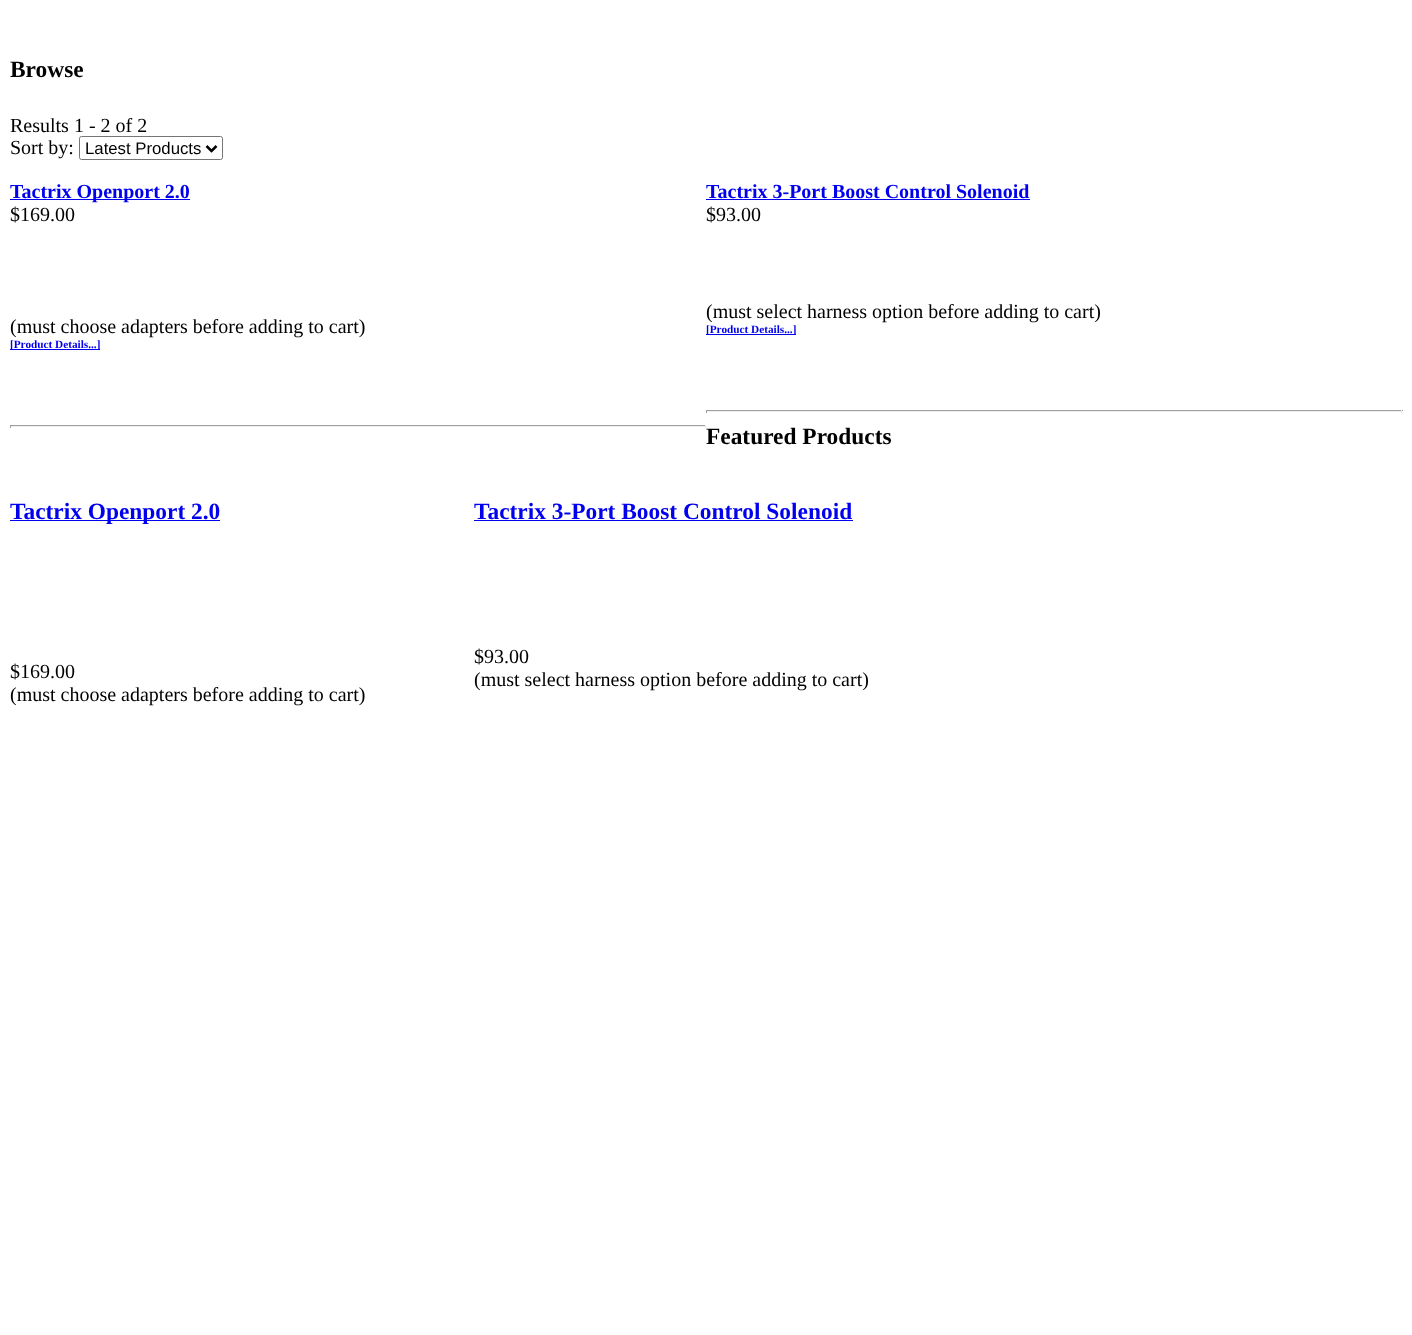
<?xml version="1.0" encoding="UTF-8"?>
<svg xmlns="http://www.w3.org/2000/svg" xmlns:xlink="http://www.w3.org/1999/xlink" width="1412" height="1335">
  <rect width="100%" height="100%" fill="#ffffff" />
  <rect x="79.5" y="136.5" width="143" height="23" rx="2" fill="none" stroke="#767676" />
  <path d="M 206.5 146 l 5 5 l 5 -5" fill="none" stroke="#000000" stroke-width="2.5" />
  <rect x="10" y="199" width="180" height="1" fill="#0000ee" />
  <rect x="10" y="349" width="90" height="1" fill="#0000ee" />
  <rect x="10" y="425" width="696" height="1" fill="#9f9f9f" />
  <rect x="705" y="425" width="1" height="3" fill="#eeeeee" />
  <rect x="10" y="426" width="696" height="1" fill="#eeeeee" />
  <rect x="10" y="425" width="1" height="3" fill="#9f9f9f" />
  <rect x="706" y="199" width="324" height="1" fill="#0000ee" />
  <rect x="706" y="334" width="90" height="1" fill="#0000ee" />
  <rect x="706" y="410" width="697" height="1" fill="#9f9f9f" />
  <rect x="1401" y="410" width="1" height="3" fill="#eeeeee" />
  <rect x="706" y="411" width="697" height="1" fill="#eeeeee" />
  <rect x="706" y="410" width="1" height="3" fill="#9f9f9f" />
  <rect x="10" y="520" width="210" height="1" fill="#0000ee" />
  <rect x="474" y="520" width="379" height="1" fill="#0000ee" />
  <text x="10" y="77" style="font-family: Liberation Serif; font-size: 23.4px; font-weight: bold; fill: #000000">Browse</text>
  <text x="10" y="132" style="font-family: Liberation Serif; font-size: 20px; fill: #000000">Results 1 - 2 of 2</text>
  <text x="10" y="154" style="font-family: Liberation Serif; font-size: 20px; fill: #000000">Sort by:</text>
  <text x="85" y="154" style="font-family: Liberation Sans; font-size: 16.75px; fill: #000000">Latest Products</text>
  <text x="10" y="198" style="font-family: Liberation Serif; font-size: 20px; font-weight: bold; fill: #0000ee">Tactrix Openport 2.0</text>
  <text x="10" y="221" style="font-family: Liberation Serif; font-size: 20px; fill: #000000">$169.00</text>
  <text x="10" y="333" style="font-family: Liberation Serif; font-size: 20px; fill: #000000">(must choose adapters before adding to cart)</text>
  <text x="10" y="348" style="font-family: Liberation Serif; font-size: 11.25px; font-weight: bold; fill: #0000ee">[Product Details...]</text>
  <text x="706" y="198" style="font-family: Liberation Serif; font-size: 20px; font-weight: bold; fill: #0000ee">Tactrix 3-Port Boost Control Solenoid</text>
  <text x="706" y="221" style="font-family: Liberation Serif; font-size: 20px; fill: #000000">$93.00</text>
  <text x="706" y="318" style="font-family: Liberation Serif; font-size: 20px; fill: #000000">(must select harness option before adding to cart)</text>
  <text x="706" y="333" style="font-family: Liberation Serif; font-size: 11.25px; font-weight: bold; fill: #0000ee">[Product Details...]</text>
  <text x="706" y="444" style="font-family: Liberation Serif; font-size: 23.4px; font-weight: bold; fill: #000000">Featured Products</text>
  <text x="10" y="519" style="font-family: Liberation Serif; font-size: 23.4px; font-weight: bold; fill: #0000ee">Tactrix Openport 2.0</text>
  <text x="10" y="678" style="font-family: Liberation Serif; font-size: 20px; fill: #000000">$169.00</text>
  <text x="10" y="701" style="font-family: Liberation Serif; font-size: 20px; fill: #000000">(must choose adapters before adding to cart)</text>
  <text x="474" y="519" style="font-family: Liberation Serif; font-size: 23.4px; font-weight: bold; fill: #0000ee">Tactrix 3-Port Boost Control Solenoid</text>
  <text x="474" y="663" style="font-family: Liberation Serif; font-size: 20px; fill: #000000">$93.00</text>
  <text x="474" y="686" style="font-family: Liberation Serif; font-size: 20px; fill: #000000">(must select harness option before adding to cart)</text>
</svg>
